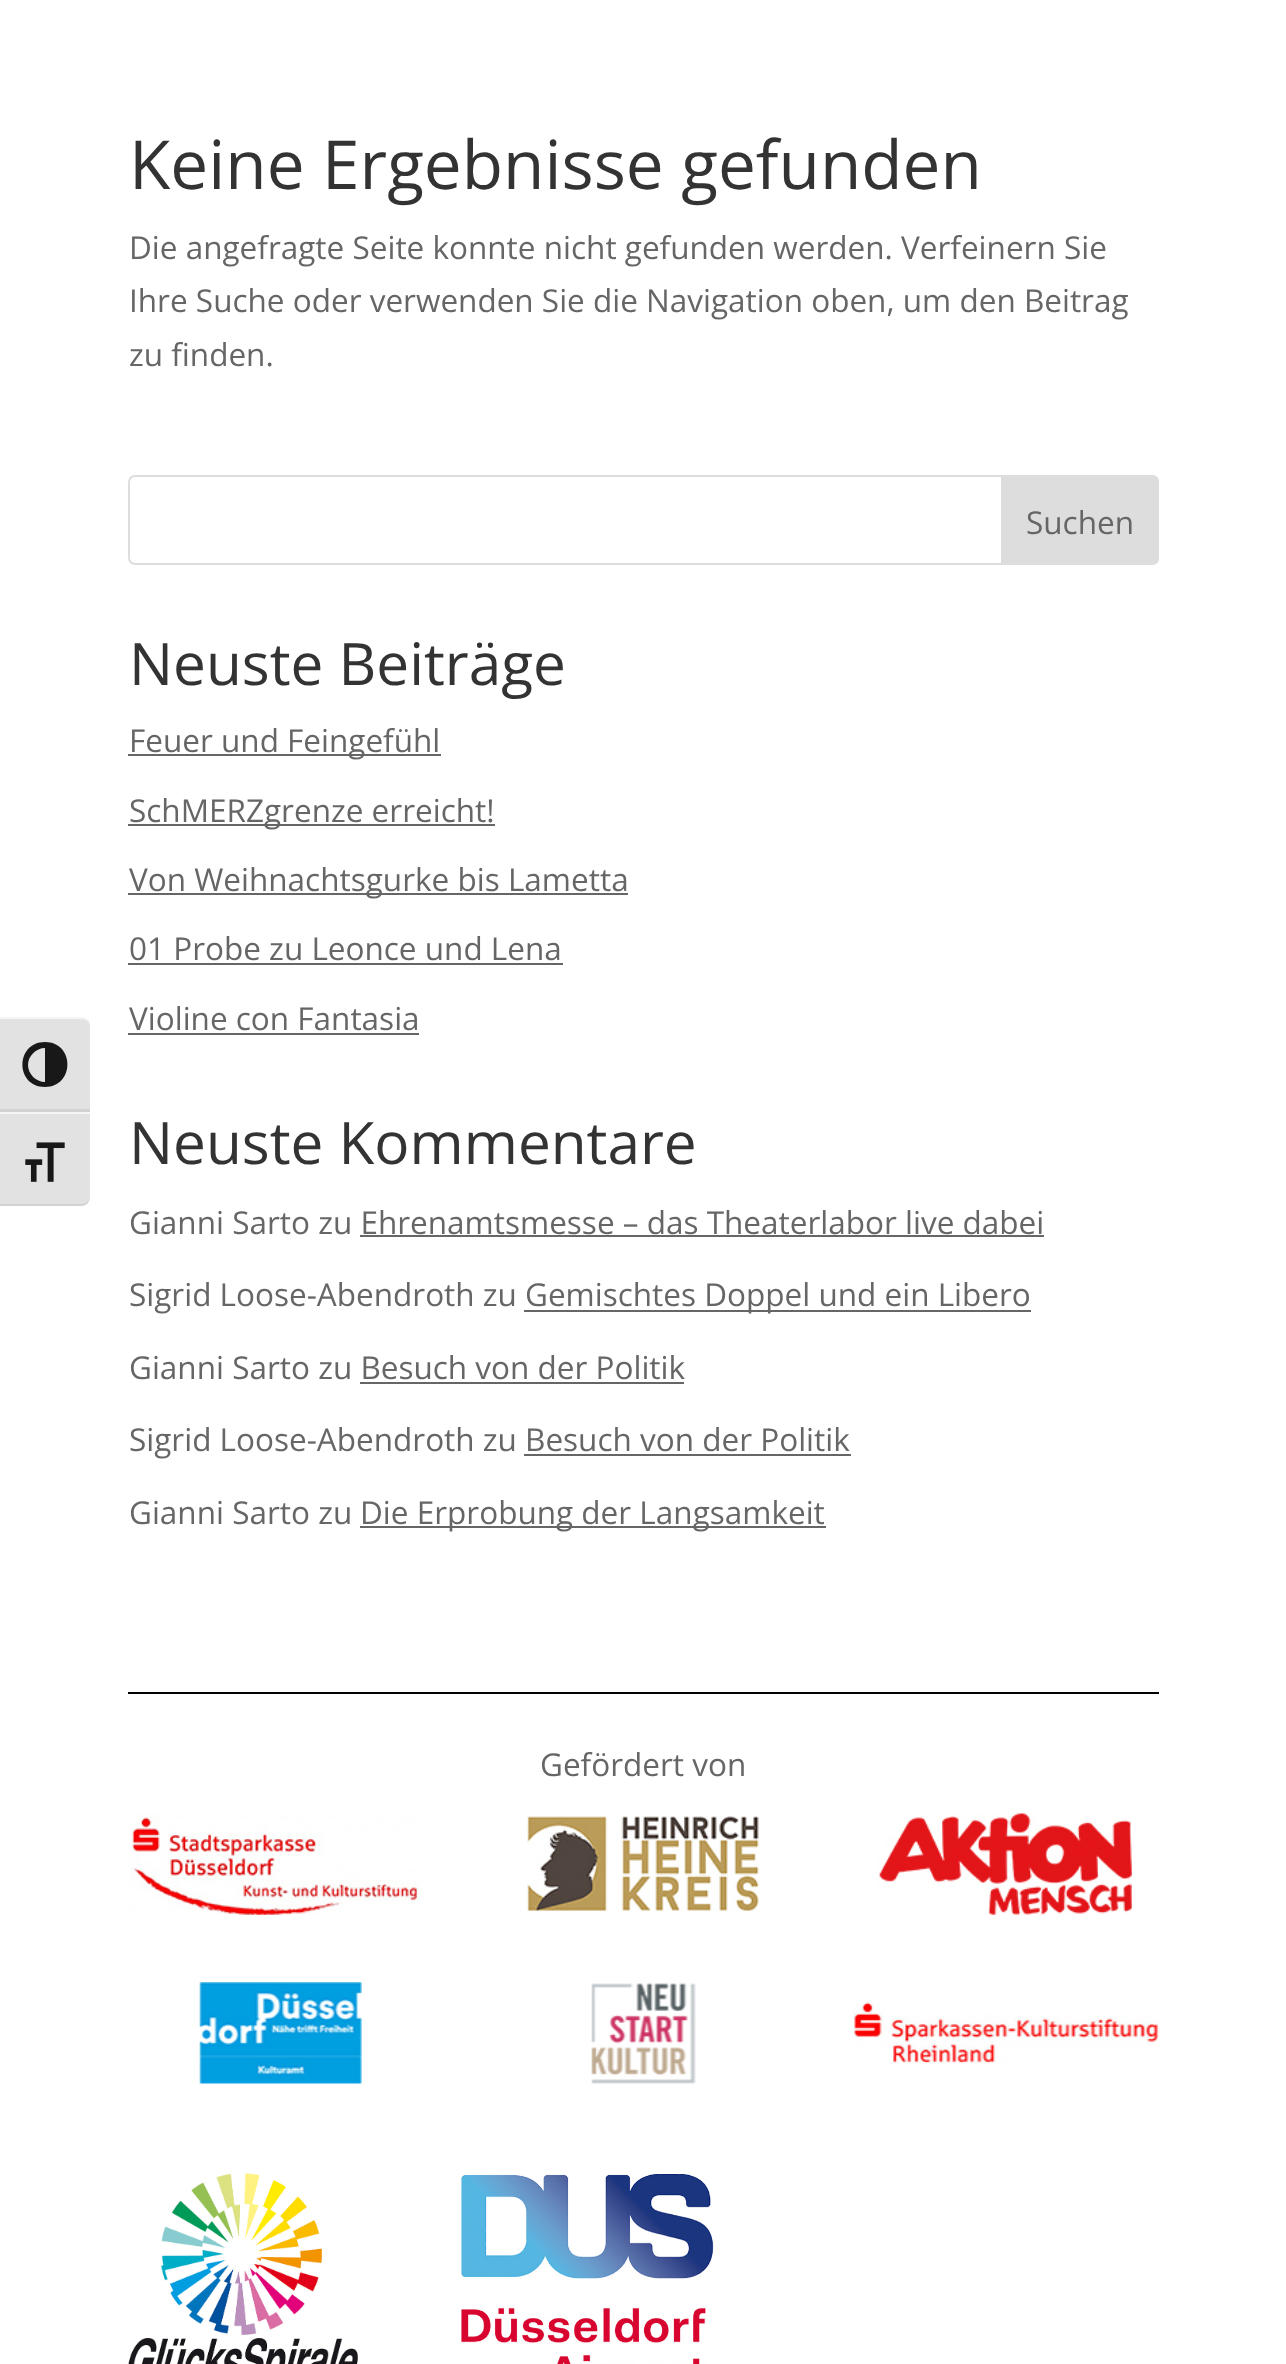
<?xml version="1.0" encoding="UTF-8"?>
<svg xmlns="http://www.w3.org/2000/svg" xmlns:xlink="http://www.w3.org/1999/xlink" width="1286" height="2364">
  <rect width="100%" height="100%" fill="#ffffff" />
  <path d="M 0 1017 h 81 c 5 0 9 4 9 9 v 86 h -90 z" fill="#e2e2e2" />
  <path d="M 0 1017 v 2 h 81 c 5 0 9 3 9 7 c 0 -5 -4 -9 -9 -9 z" fill="#f5f5f5" />
  <rect y="1109" width="90" height="3" fill="#d2d2d2" />
  <path d="M 45 1042 c -30 0 -30 45 0 45 c 30 0 30 -45 0 -45 z m -17 23 c 0 -9 8 -17 17 -17 v 34 c -9 0 -17 -8 -17 -17 z" fill="#181818" />
  <path d="M 0 1112 h 90 v 85 c 0 5 -4 9 -9 9 h -81 z" fill="#e2e2e2" />
  <rect y="1112" width="90" height="2" fill="#f5f5f5" />
  <path d="M 0 1204 v 2 h 81 c 5 0 9 -4 9 -9 c 0 4 -4 7 -9 7 z" fill="#d2d2d2" />
  <image x="25" y="1142" width="40" height="40" xlink:href="image1.png" />
  <rect x="129" y="476" width="1029" height="88" rx="6" fill="none" stroke="#dddddd" stroke-width="2" />
  <path d="M 1002 476 h 150 c 3.5 0 6 2.5 6 6 v 76 c 0 3.5 -2.5 6 -6 6 h -150 z" fill="#dddddd" stroke="#dddddd" stroke-width="2" />
  <rect x="128" y="754" width="313" height="2" fill="#666666" />
  <rect x="128" y="824" width="367" height="2" fill="#666666" />
  <rect x="128" y="893" width="500" height="2" fill="#666666" />
  <rect x="128" y="963" width="435" height="2" fill="#666666" />
  <rect x="128" y="1033" width="291" height="2" fill="#666666" />
  <rect x="360" y="1235" width="684" height="2" fill="#666666" />
  <rect x="524" y="1310" width="507" height="2" fill="#666666" />
  <rect x="360" y="1382" width="324" height="2" fill="#666666" />
  <rect x="524" y="1454" width="327" height="2" fill="#666666" />
  <rect x="360" y="1526" width="466" height="2" fill="#666666" />
  <rect x="128" y="1692" width="1031" height="2" fill="#000000" />
  <image x="129" y="1814" width="292" height="101" xlink:href="image2.png" />
  <image x="527" y="1816" width="232" height="95" xlink:href="image3.png" />
  <image x="876" y="1813" width="256" height="102" xlink:href="image4.png" />
  <image x="199" y="1982" width="163" height="102" xlink:href="image5.png" />
  <image x="591" y="1983" width="105" height="101" xlink:href="image6.png" />
  <image x="853" y="2002" width="306" height="62" xlink:href="image7.png" />
  <image x="128" y="2173" width="230" height="191" xlink:href="image8.png" />
  <image x="461" y="2174" width="253" height="190" xlink:href="image9.png" />
  <text x="129" y="189" style="font-family: Open Sans; font-size: 67.5px; fill: #333333">Keine Ergebnisse gefunden</text>
  <text x="129" y="259" style="font-family: Open Sans; font-size: 31.5px; fill: #666666">Die angefragte Seite konnte nicht gefunden werden. Verfeinern Sie</text>
  <text x="129" y="312" style="font-family: Open Sans; font-size: 31.5px; fill: #666666">Ihre Suche oder verwenden Sie die Navigation oben, um den Beitrag</text>
  <text x="129" y="366" style="font-family: Open Sans; font-size: 31.5px; fill: #666666">zu finden.</text>
  <text x="1026" y="534" style="font-family: Open Sans; font-size: 31.5px; fill: #666666">Suchen</text>
  <text x="129" y="685" style="font-family: Open Sans; font-size: 58.5px; fill: #333333">Neuste Beiträge</text>
  <text x="129" y="752" style="font-family: Open Sans; font-size: 31.5px; fill: #666666">Feuer und Feingefühl</text>
  <text x="129" y="822" style="font-family: Open Sans; font-size: 31.5px; fill: #666666">SchMERZgrenze erreicht!</text>
  <text x="129" y="891" style="font-family: Open Sans; font-size: 31.5px; fill: #666666">Von Weihnachtsgurke bis Lametta</text>
  <text x="129" y="960" style="font-family: Open Sans; font-size: 31.5px; fill: #666666">01 Probe zu Leonce und Lena</text>
  <text x="129" y="1030" style="font-family: Open Sans; font-size: 31.5px; fill: #666666">Violine con Fantasia</text>
  <text x="129" y="1164" style="font-family: Open Sans; font-size: 58.5px; fill: #333333">Neuste Kommentare</text>
  <text x="129" y="1234" style="font-family: Open Sans; font-size: 31.5px; fill: #666666">Gianni Sarto zu Ehrenamtsmesse – das Theaterlabor live dabei</text>
  <text x="129" y="1306" style="font-family: Open Sans; font-size: 31.5px; fill: #666666">Sigrid Loose-Abendroth zu</text>
  <text x="525" y="1306" style="font-family: Open Sans; font-size: 31.5px; fill: #666666">Gemischtes Doppel und ein Libero</text>
  <text x="129" y="1379" style="font-family: Open Sans; font-size: 31.5px; fill: #666666">Gianni Sarto zu Besuch von der Politik</text>
  <text x="129" y="1451" style="font-family: Open Sans; font-size: 31.5px; fill: #666666">Sigrid Loose-Abendroth zu Besuch von der Politik</text>
  <text x="129" y="1524" style="font-family: Open Sans; font-size: 31.5px; fill: #666666">Gianni Sarto zu</text>
  <text x="360" y="1524" style="font-family: Open Sans; font-size: 31.5px; fill: #666666">Die Erprobung der Langsamkeit</text>
  <text x="540" y="1776" style="font-family: Open Sans; font-size: 31.5px; fill: #666666">Gefördert von</text>
</svg>
